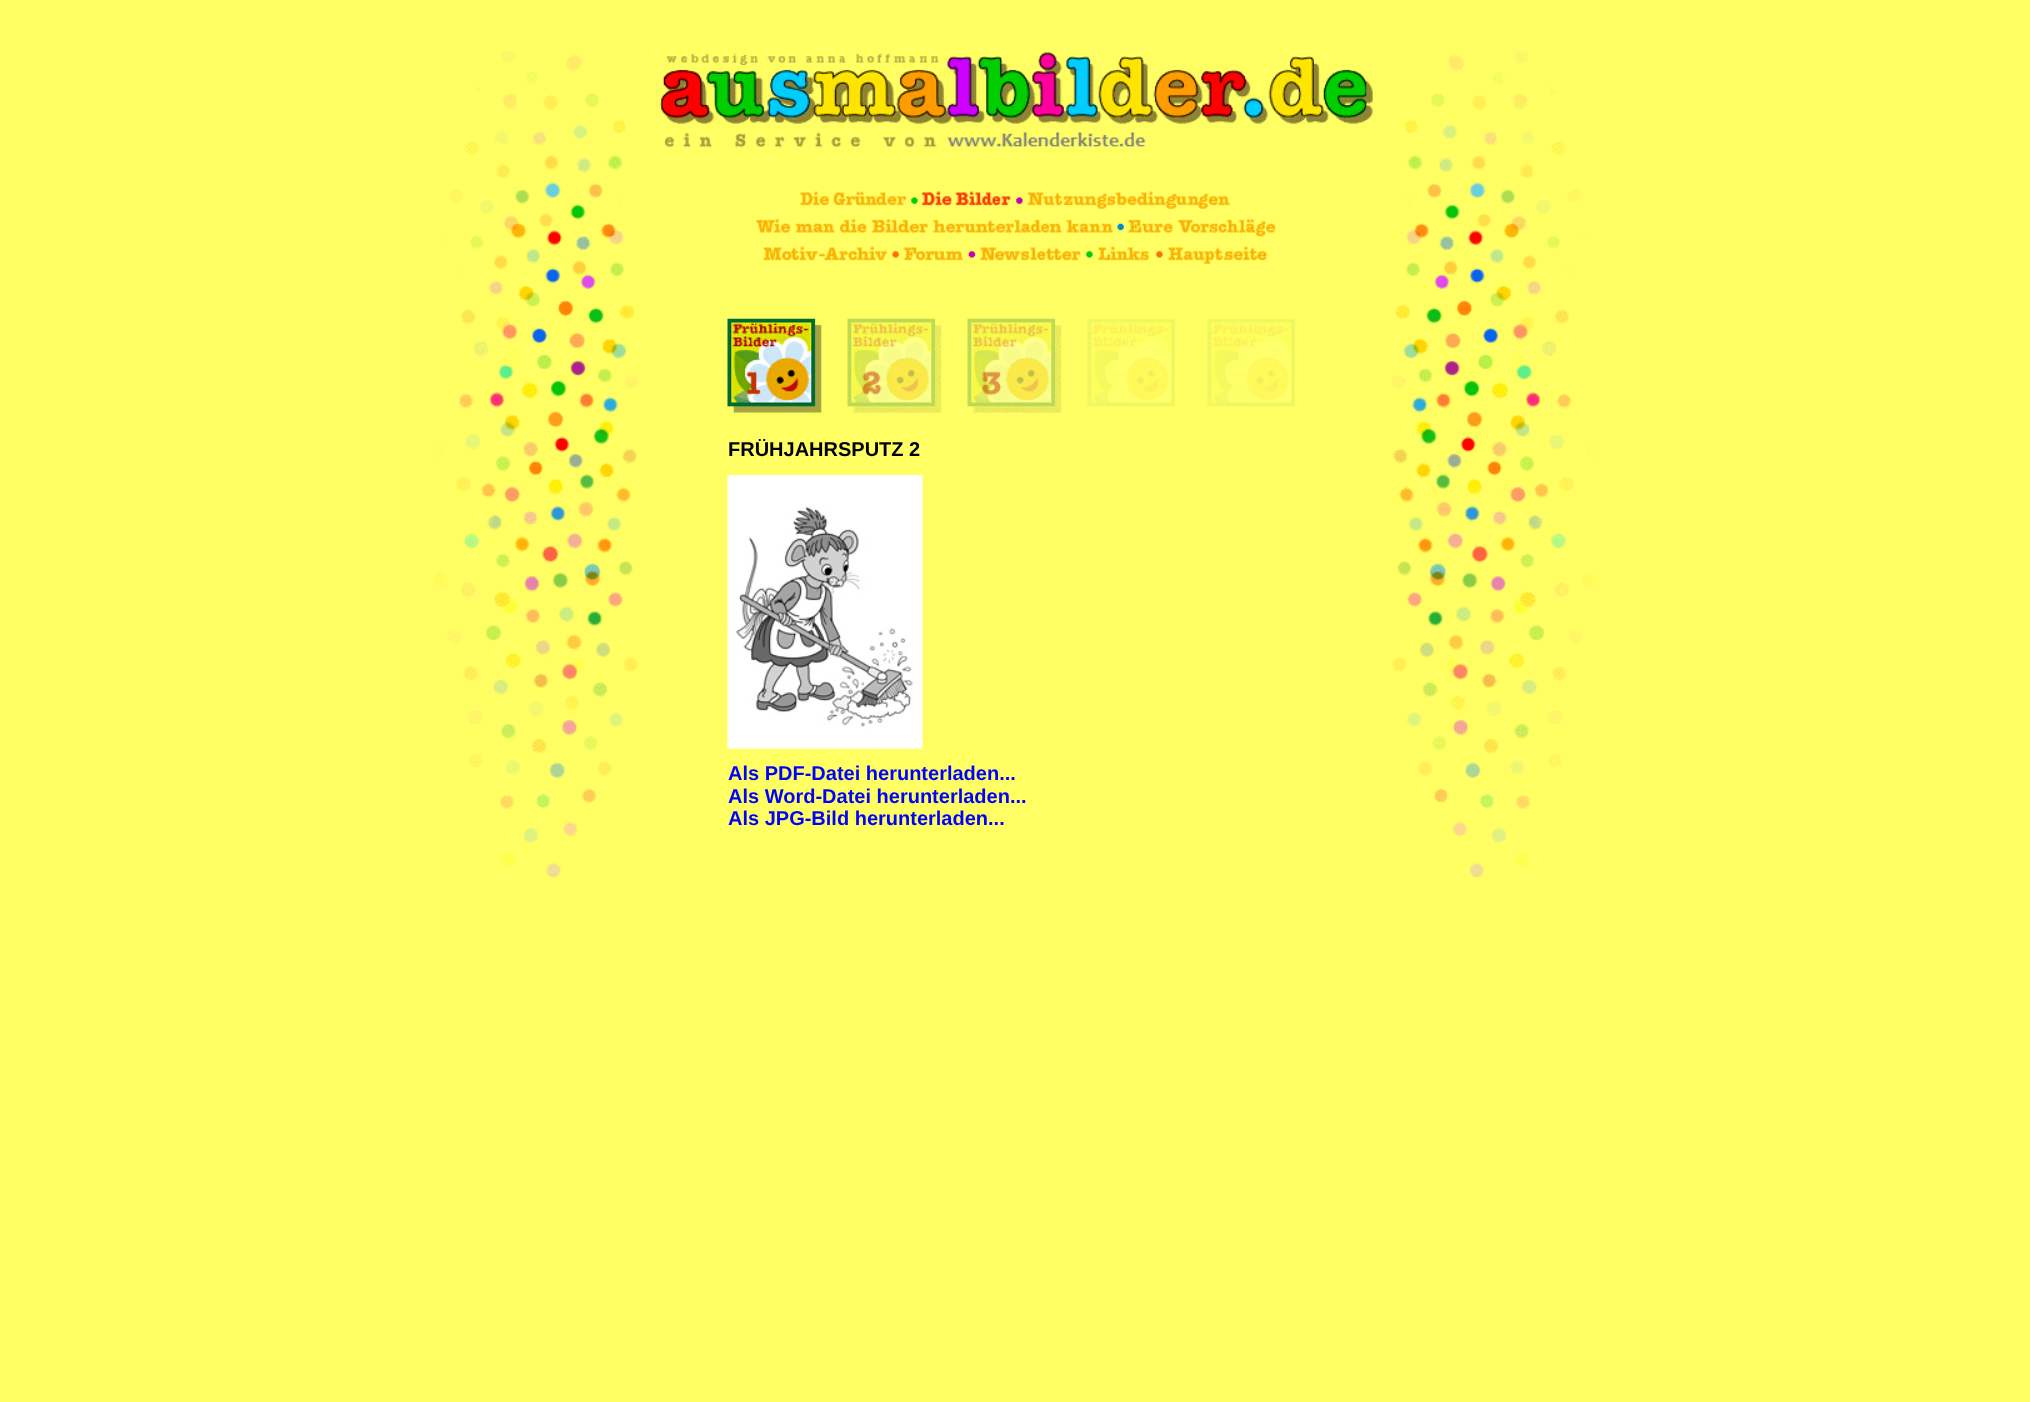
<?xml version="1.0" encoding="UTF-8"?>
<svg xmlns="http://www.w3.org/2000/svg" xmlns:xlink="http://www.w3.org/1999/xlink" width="2030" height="1402">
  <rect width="100%" height="100%" fill="#ffff63" />
  <image x="434" y="50" width="204" height="828" xlink:href="image1.png" />
  <image x="660" y="52" width="713" height="96" xlink:href="image2.png" />
  <image x="800" y="191" width="107" height="15" xlink:href="image3.png" />
  <image x="911" y="197" width="7" height="7" xlink:href="image4.png" />
  <image x="921" y="191" width="91" height="15" xlink:href="image5.png" />
  <image x="1016" y="197" width="7" height="7" xlink:href="image6.png" />
  <image x="1027" y="191" width="204" height="18" xlink:href="image7.png" />
  <image x="756" y="218" width="357" height="15" xlink:href="image8.png" />
  <image x="1117" y="223" width="7" height="8" xlink:href="image9.png" />
  <image x="1127" y="218" width="149" height="19" xlink:href="image10.png" />
  <image x="763" y="246" width="125" height="15" xlink:href="image11.png" />
  <image x="892" y="251" width="7" height="7" xlink:href="image12.png" />
  <image x="903" y="247" width="60" height="14" xlink:href="image13.png" />
  <image x="968" y="251" width="8" height="7" xlink:href="image14.png" />
  <image x="980" y="247" width="102" height="14" xlink:href="image15.png" />
  <image x="1086" y="251" width="7" height="7" xlink:href="image16.png" />
  <image x="1097" y="246" width="52" height="15" xlink:href="image17.png" />
  <image x="1156" y="251" width="7" height="7" xlink:href="image18.png" />
  <image x="1167" y="246" width="101" height="18" xlink:href="image19.png" />
  <image x="727" y="318" width="95" height="95" xlink:href="image20.png" />
  <image x="847" y="318" width="95" height="95" xlink:href="image21.png" />
  <image x="967" y="318" width="95" height="95" xlink:href="image22.png" />
  <image x="1087" y="318" width="88" height="89" xlink:href="image23.png" />
  <image x="1207" y="318" width="88" height="89" xlink:href="image24.png" />
  <image x="727" y="475" width="196" height="274" xlink:href="image25.png" />
  <image x="1392" y="50" width="204" height="828" xlink:href="image26.png" />
  <text x="728" y="456" style="font-family: Liberation Sans; font-size: 20px; font-weight: bold; fill: #000000">FRÜHJAHRSPUTZ 2</text>
  <text x="728" y="780" style="font-family: Liberation Sans; font-size: 20px; font-weight: bold; fill: #0000ff">Als PDF-Datei herunterladen...</text>
  <text x="728" y="803" style="font-family: Liberation Sans; font-size: 20px; font-weight: bold; fill: #0000ff">Als Word-Datei herunterladen...</text>
  <text x="728" y="825" style="font-family: Liberation Sans; font-size: 20px; font-weight: bold; fill: #0000ff">Als JPG-Bild herunterladen...</text>
</svg>
